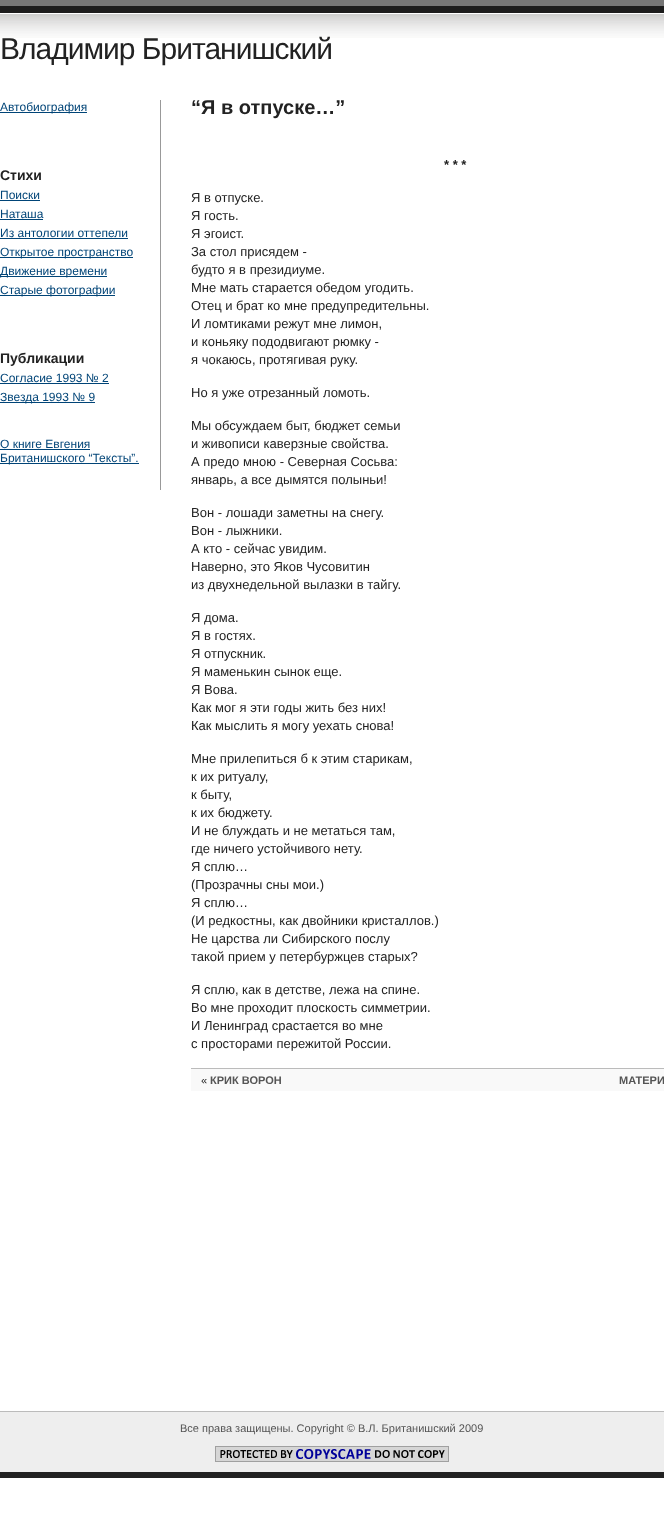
<?xml version="1.0" encoding="UTF-8"?>
<svg xmlns="http://www.w3.org/2000/svg" xmlns:xlink="http://www.w3.org/1999/xlink" width="664" height="1514">
  <rect width="100%" height="100%" fill="#ffffff" />
  <image x="0" y="0" width="664" height="38" xlink:href="image1.png" />
  <rect x="160" y="100" width="1" height="390" fill="#999999" />
  <rect y="112" width="87" height="1" fill="#004477" />
  <rect y="200" width="40" height="1" fill="#004477" />
  <rect y="219" width="43" height="1" fill="#004477" />
  <rect y="238" width="128" height="1" fill="#004477" />
  <rect y="257" width="133" height="1" fill="#004477" />
  <rect y="276" width="107" height="1" fill="#004477" />
  <rect y="295" width="115" height="1" fill="#004477" />
  <rect y="383" width="109" height="1" fill="#004477" />
  <rect y="402" width="95" height="1" fill="#004477" />
  <rect y="449" width="90" height="1" fill="#004477" />
  <rect y="463" width="139" height="1" fill="#004477" />
  <rect x="191" y="1069" width="473" height="22" fill="#f9f9f9" />
  <rect x="191" y="1068" width="473" height="1" fill="#bbbbbb" />
  <rect y="1412" width="664" height="60" fill="#eeeeee" />
  <rect y="1411" width="664" height="1" fill="#bbbbbb" />
  <rect y="1472" width="664" height="6" fill="#222222" />
  <image x="215" y="1446" width="234" height="16" xlink:href="image2.png" />
  <text x="0" y="59" style="font-family: Liberation Sans; font-size: 30px; letter-spacing: -1px; fill: #222222">Владимир Британишский</text>
  <text x="0" y="111" style="font-family: Liberation Sans; font-size: 12px; fill: #004477">Автобиография</text>
  <text x="0" y="180" style="font-family: Liberation Sans; font-size: 14px; font-weight: bold; fill: #222222">Стихи</text>
  <text x="0" y="199" style="font-family: Liberation Sans; font-size: 12px; fill: #004477">Поиски</text>
  <text x="0" y="218" style="font-family: Liberation Sans; font-size: 12px; fill: #004477">Наташа</text>
  <text x="0" y="237" style="font-family: Liberation Sans; font-size: 12px; fill: #004477">Из антологии оттепели</text>
  <text x="0" y="256" style="font-family: Liberation Sans; font-size: 12px; fill: #004477">Открытое пространство</text>
  <text x="0" y="275" style="font-family: Liberation Sans; font-size: 12px; fill: #004477">Движение времени</text>
  <text x="0" y="294" style="font-family: Liberation Sans; font-size: 12px; fill: #004477">Старые фотографии</text>
  <text x="0" y="363" style="font-family: Liberation Sans; font-size: 14px; font-weight: bold; fill: #222222">Публикации</text>
  <text x="0" y="382" style="font-family: Liberation Sans; font-size: 12px; fill: #004477">Согласие 1993 № 2</text>
  <text x="0" y="401" style="font-family: Liberation Sans; font-size: 12px; fill: #004477">Звезда 1993 № 9</text>
  <text x="0" y="448" style="font-family: Liberation Sans; font-size: 12px; fill: #004477">О книге Евгения</text>
  <text x="0" y="462" style="font-family: Liberation Sans; font-size: 12px; fill: #004477">Британишского “Тексты”.</text>
  <text x="191" y="114" style="font-family: Liberation Sans; font-size: 20px; font-weight: bold; fill: #222222">“Я в отпуске…”</text>
  <text x="444" y="169" style="font-family: Liberation Sans; font-size: 13px; font-weight: bold; fill: #222222">* * *</text>
  <text x="191" y="202" style="font-family: Liberation Sans; font-size: 13px; fill: #222222">Я в отпуске.</text>
  <text x="191" y="220" style="font-family: Liberation Sans; font-size: 13px; fill: #222222">Я гость.</text>
  <text x="191" y="238" style="font-family: Liberation Sans; font-size: 13px; fill: #222222">Я эгоист.</text>
  <text x="191" y="256" style="font-family: Liberation Sans; font-size: 13px; fill: #222222">За стол присядем -</text>
  <text x="191" y="274" style="font-family: Liberation Sans; font-size: 13px; fill: #222222">будто я в президиуме.</text>
  <text x="191" y="292" style="font-family: Liberation Sans; font-size: 13px; fill: #222222">Мне мать старается обедом угодить.</text>
  <text x="191" y="310" style="font-family: Liberation Sans; font-size: 13px; fill: #222222">Отец и брат ко мне предупредительны.</text>
  <text x="191" y="328" style="font-family: Liberation Sans; font-size: 13px; fill: #222222">И ломтиками режут мне лимон,</text>
  <text x="191" y="346" style="font-family: Liberation Sans; font-size: 13px; fill: #222222">и коньяку пододвигают рюмку -</text>
  <text x="191" y="364" style="font-family: Liberation Sans; font-size: 13px; fill: #222222">я чокаюсь, протягивая руку.</text>
  <text x="191" y="397" style="font-family: Liberation Sans; font-size: 13px; fill: #222222">Но я уже отрезанный ломоть.</text>
  <text x="191" y="430" style="font-family: Liberation Sans; font-size: 13px; fill: #222222">Мы обсуждаем быт, бюджет семьи</text>
  <text x="191" y="448" style="font-family: Liberation Sans; font-size: 13px; fill: #222222">и живописи каверзные свойства.</text>
  <text x="191" y="466" style="font-family: Liberation Sans; font-size: 13px; fill: #222222">А предо мною - Северная Сосьва:</text>
  <text x="191" y="484" style="font-family: Liberation Sans; font-size: 13px; fill: #222222">январь, а все дымятся полыньи!</text>
  <text x="191" y="517" style="font-family: Liberation Sans; font-size: 13px; fill: #222222">Вон - лошади заметны на снегу.</text>
  <text x="191" y="535" style="font-family: Liberation Sans; font-size: 13px; fill: #222222">Вон - лыжники.</text>
  <text x="191" y="553" style="font-family: Liberation Sans; font-size: 13px; fill: #222222">А кто - сейчас увидим.</text>
  <text x="191" y="571" style="font-family: Liberation Sans; font-size: 13px; fill: #222222">Наверно, это Яков Чусовитин</text>
  <text x="191" y="589" style="font-family: Liberation Sans; font-size: 13px; fill: #222222">из двухнедельной вылазки в тайгу.</text>
  <text x="191" y="622" style="font-family: Liberation Sans; font-size: 13px; fill: #222222">Я дома.</text>
  <text x="191" y="640" style="font-family: Liberation Sans; font-size: 13px; fill: #222222">Я в гостях.</text>
  <text x="191" y="658" style="font-family: Liberation Sans; font-size: 13px; fill: #222222">Я отпускник.</text>
  <text x="191" y="676" style="font-family: Liberation Sans; font-size: 13px; fill: #222222">Я маменькин сынок еще.</text>
  <text x="191" y="694" style="font-family: Liberation Sans; font-size: 13px; fill: #222222">Я Вова.</text>
  <text x="191" y="712" style="font-family: Liberation Sans; font-size: 13px; fill: #222222">Как мог я эти годы жить без них!</text>
  <text x="191" y="730" style="font-family: Liberation Sans; font-size: 13px; fill: #222222">Как мыслить я могу уехать снова!</text>
  <text x="191" y="763" style="font-family: Liberation Sans; font-size: 13px; fill: #222222">Мне прилепиться б к этим старикам,</text>
  <text x="191" y="781" style="font-family: Liberation Sans; font-size: 13px; fill: #222222">к их ритуалу,</text>
  <text x="191" y="799" style="font-family: Liberation Sans; font-size: 13px; fill: #222222">к быту,</text>
  <text x="191" y="817" style="font-family: Liberation Sans; font-size: 13px; fill: #222222">к их бюджету.</text>
  <text x="191" y="835" style="font-family: Liberation Sans; font-size: 13px; fill: #222222">И не блуждать и не метаться там,</text>
  <text x="191" y="853" style="font-family: Liberation Sans; font-size: 13px; fill: #222222">где ничего устойчивого нету.</text>
  <text x="191" y="871" style="font-family: Liberation Sans; font-size: 13px; fill: #222222">Я сплю…</text>
  <text x="191" y="889" style="font-family: Liberation Sans; font-size: 13px; fill: #222222">(Прозрачны сны мои.)</text>
  <text x="191" y="907" style="font-family: Liberation Sans; font-size: 13px; fill: #222222">Я сплю…</text>
  <text x="191" y="925" style="font-family: Liberation Sans; font-size: 13px; fill: #222222">(И редкостны, как двойники кристаллов.)</text>
  <text x="191" y="943" style="font-family: Liberation Sans; font-size: 13px; fill: #222222">Не царства ли Сибирского послу</text>
  <text x="191" y="961" style="font-family: Liberation Sans; font-size: 13px; fill: #222222">такой прием у петербуржцев старых?</text>
  <text x="191" y="994" style="font-family: Liberation Sans; font-size: 13px; fill: #222222">Я сплю, как в детстве, лежа на спине.</text>
  <text x="191" y="1012" style="font-family: Liberation Sans; font-size: 13px; fill: #222222">Во мне проходит плоскость симметрии.</text>
  <text x="191" y="1030" style="font-family: Liberation Sans; font-size: 13px; fill: #222222">И Ленинград срастается во мне</text>
  <text x="191" y="1048" style="font-family: Liberation Sans; font-size: 13px; fill: #222222">с просторами пережитой России.</text>
  <text x="201" y="1084" style="font-family: Liberation Sans; font-size: 11px; fill: #222222">«</text>
  <text x="210" y="1084" style="font-family: Liberation Sans; font-size: 11px; font-weight: bold; fill: #555555">КРИК ВОРОН</text>
  <text x="619" y="1084" style="font-family: Liberation Sans; font-size: 11px; font-weight: bold; fill: #555555">МАТЕРИ</text>
  <text x="180" y="1432" style="font-family: Liberation Sans; font-size: 11px; fill: #555555">Все права защищены. Copyright © В.Л. Британишский 2009</text>
</svg>
